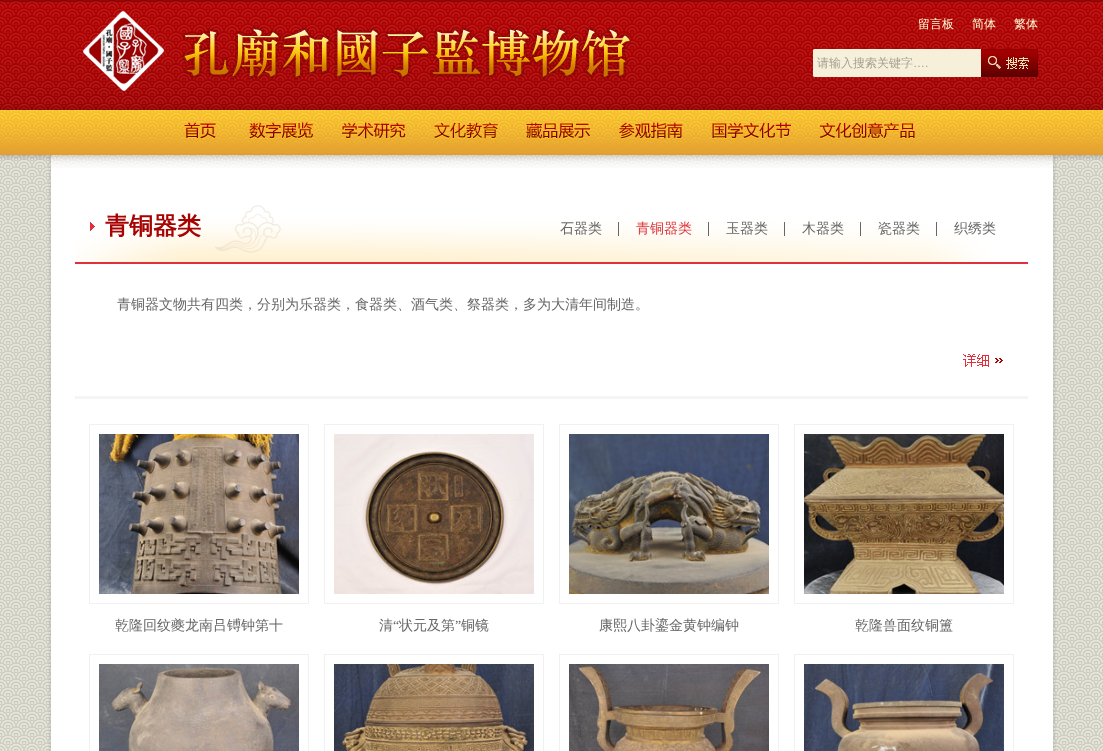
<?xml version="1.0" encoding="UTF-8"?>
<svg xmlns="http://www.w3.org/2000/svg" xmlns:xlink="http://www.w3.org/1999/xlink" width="1103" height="751">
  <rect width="100%" height="100%" fill="#ffffff" />
  <image x="0" y="155" width="1103" height="596" xlink:href="image1.png" />
  <image x="0" y="0" width="1103" height="155" xlink:href="image2.png" />
  <image x="83" y="11" width="548" height="80" xlink:href="image3.png" />
  <image x="813" y="49" width="225" height="28" xlink:href="image4.png" />
  <image x="184" y="122" width="32" height="17" xlink:href="image5.png" />
  <image x="249" y="122" width="64" height="17" xlink:href="image6.png" />
  <image x="342" y="122" width="64" height="18" xlink:href="image7.png" />
  <image x="434" y="122" width="64" height="18" xlink:href="image8.png" />
  <image x="526" y="122" width="64" height="18" xlink:href="image9.png" />
  <image x="619" y="122" width="64" height="18" xlink:href="image10.png" />
  <image x="712" y="122" width="79" height="17" xlink:href="image11.png" />
  <image x="819" y="122" width="96" height="17" xlink:href="image12.png" />
  <image x="48" y="155" width="1008" height="596" xlink:href="image13.png" />
  <image x="0" y="155" width="1103" height="5" xlink:href="image14.png" />
  <image x="51" y="155" width="1002" height="13" xlink:href="image15.png" />
  <image x="75" y="205" width="953" height="59" xlink:href="image16.png" />
  <image x="90" y="222" width="5" height="9" xlink:href="image17.png" />
  <image x="618" y="222" width="1" height="14" xlink:href="image18.png" />
  <image x="708" y="222" width="1" height="14" xlink:href="image18.png" />
  <image x="784" y="222" width="1" height="14" xlink:href="image18.png" />
  <image x="860" y="222" width="1" height="14" xlink:href="image18.png" />
  <image x="936" y="222" width="1" height="14" xlink:href="image18.png" />
  <rect x="75" y="396" width="953" height="3" fill="#f5f5f3" />
  <image x="963" y="354" width="40" height="13" xlink:href="image19.png" />
  <rect x="89.5" y="424.5" width="219" height="179" fill="none" stroke="#f1f1f1" />
  <image x="99" y="434" width="200" height="160" xlink:href="image20.png" />
  <rect x="324.5" y="424.5" width="219" height="179" fill="none" stroke="#f1f1f1" />
  <image x="334" y="434" width="200" height="160" xlink:href="image21.png" />
  <rect x="559.5" y="424.5" width="219" height="179" fill="none" stroke="#f1f1f1" />
  <image x="569" y="434" width="200" height="160" xlink:href="image22.png" />
  <rect x="794.5" y="424.5" width="219" height="179" fill="none" stroke="#f1f1f1" />
  <image x="804" y="434" width="200" height="160" xlink:href="image23.png" />
  <rect x="89.5" y="654.5" width="219" height="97" fill="none" stroke="#f1f1f1" />
  <image x="99" y="664" width="200" height="87" xlink:href="image24.png" />
  <rect x="324.5" y="654.5" width="219" height="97" fill="none" stroke="#f1f1f1" />
  <image x="334" y="664" width="200" height="87" xlink:href="image25.png" />
  <rect x="559.5" y="654.5" width="219" height="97" fill="none" stroke="#f1f1f1" />
  <image x="569" y="664" width="200" height="87" xlink:href="image26.png" />
  <rect x="794.5" y="654.5" width="219" height="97" fill="none" stroke="#f1f1f1" />
  <image x="804" y="664" width="200" height="87" xlink:href="image27.png" />
  <text x="918" y="28" style="font-family: WenQuanYi Zen Hei; font-size: 12px; font-weight: 500; fill: #fffcd5">留言板</text>
  <text x="972" y="28" style="font-family: WenQuanYi Zen Hei; font-size: 12px; font-weight: 500; fill: #fffcd5">简体</text>
  <text x="1014" y="28" style="font-family: WenQuanYi Zen Hei; font-size: 12px; font-weight: 500; fill: #fffcd5">繁体</text>
  <text x="817" y="67" style="font-family: WenQuanYi Zen Hei; font-size: 12px; font-weight: 500; fill: #a5a192">请输入搜索关键字</text>
  <text x="913" y="67" style="font-family: Liberation Sans; font-size: 12px; fill: #a5a192">….</text>
  <text x="105" y="234" style="font-family: WenQuanYi Zen Hei; font-size: 24px; font-weight: bold; fill: #a70303">青铜器类</text>
  <text x="560" y="233" style="font-family: WenQuanYi Zen Hei; font-size: 14px; font-weight: 500; fill: #676767">石器类</text>
  <text x="636" y="233" style="font-family: WenQuanYi Zen Hei; font-size: 14px; font-weight: 500; fill: #e03639">青铜器类</text>
  <text x="726" y="233" style="font-family: WenQuanYi Zen Hei; font-size: 14px; font-weight: 500; fill: #676767">玉器类</text>
  <text x="802" y="233" style="font-family: WenQuanYi Zen Hei; font-size: 14px; font-weight: 500; fill: #676767">木器类</text>
  <text x="878" y="233" style="font-family: WenQuanYi Zen Hei; font-size: 14px; font-weight: 500; fill: #676767">瓷器类</text>
  <text x="954" y="233" style="font-family: WenQuanYi Zen Hei; font-size: 14px; font-weight: 500; fill: #676767">织绣类</text>
  <text x="117" y="309" style="font-family: WenQuanYi Zen Hei; font-size: 14px; font-weight: 500; fill: #676767">青铜器文物共有四类，分别为乐器类，食器类、酒气类、祭器类，多为大清年间制造。</text>
  <text x="115" y="630" style="font-family: WenQuanYi Zen Hei; font-size: 14px; font-weight: 500; fill: #676767">乾隆回纹夔龙南吕镈钟第十</text>
  <text x="379" y="630" style="font-family: WenQuanYi Zen Hei; font-size: 14px; font-weight: 500; fill: #676767">清</text>
  <text x="393" y="630" style="font-family: Liberation Serif; font-size: 14px; fill: #676767">“</text>
  <text x="399" y="630" style="font-family: WenQuanYi Zen Hei; font-size: 14px; font-weight: 500; fill: #676767">状元及第</text>
  <text x="455" y="630" style="font-family: Liberation Serif; font-size: 14px; fill: #676767">”</text>
  <text x="461" y="630" style="font-family: WenQuanYi Zen Hei; font-size: 14px; font-weight: 500; fill: #676767">铜镜</text>
  <text x="599" y="630" style="font-family: WenQuanYi Zen Hei; font-size: 14px; font-weight: 500; fill: #676767">康熙八卦鎏金黄钟编钟</text>
  <text x="855" y="630" style="font-family: WenQuanYi Zen Hei; font-size: 14px; font-weight: 500; fill: #676767">乾隆兽面纹铜簠</text>
</svg>
